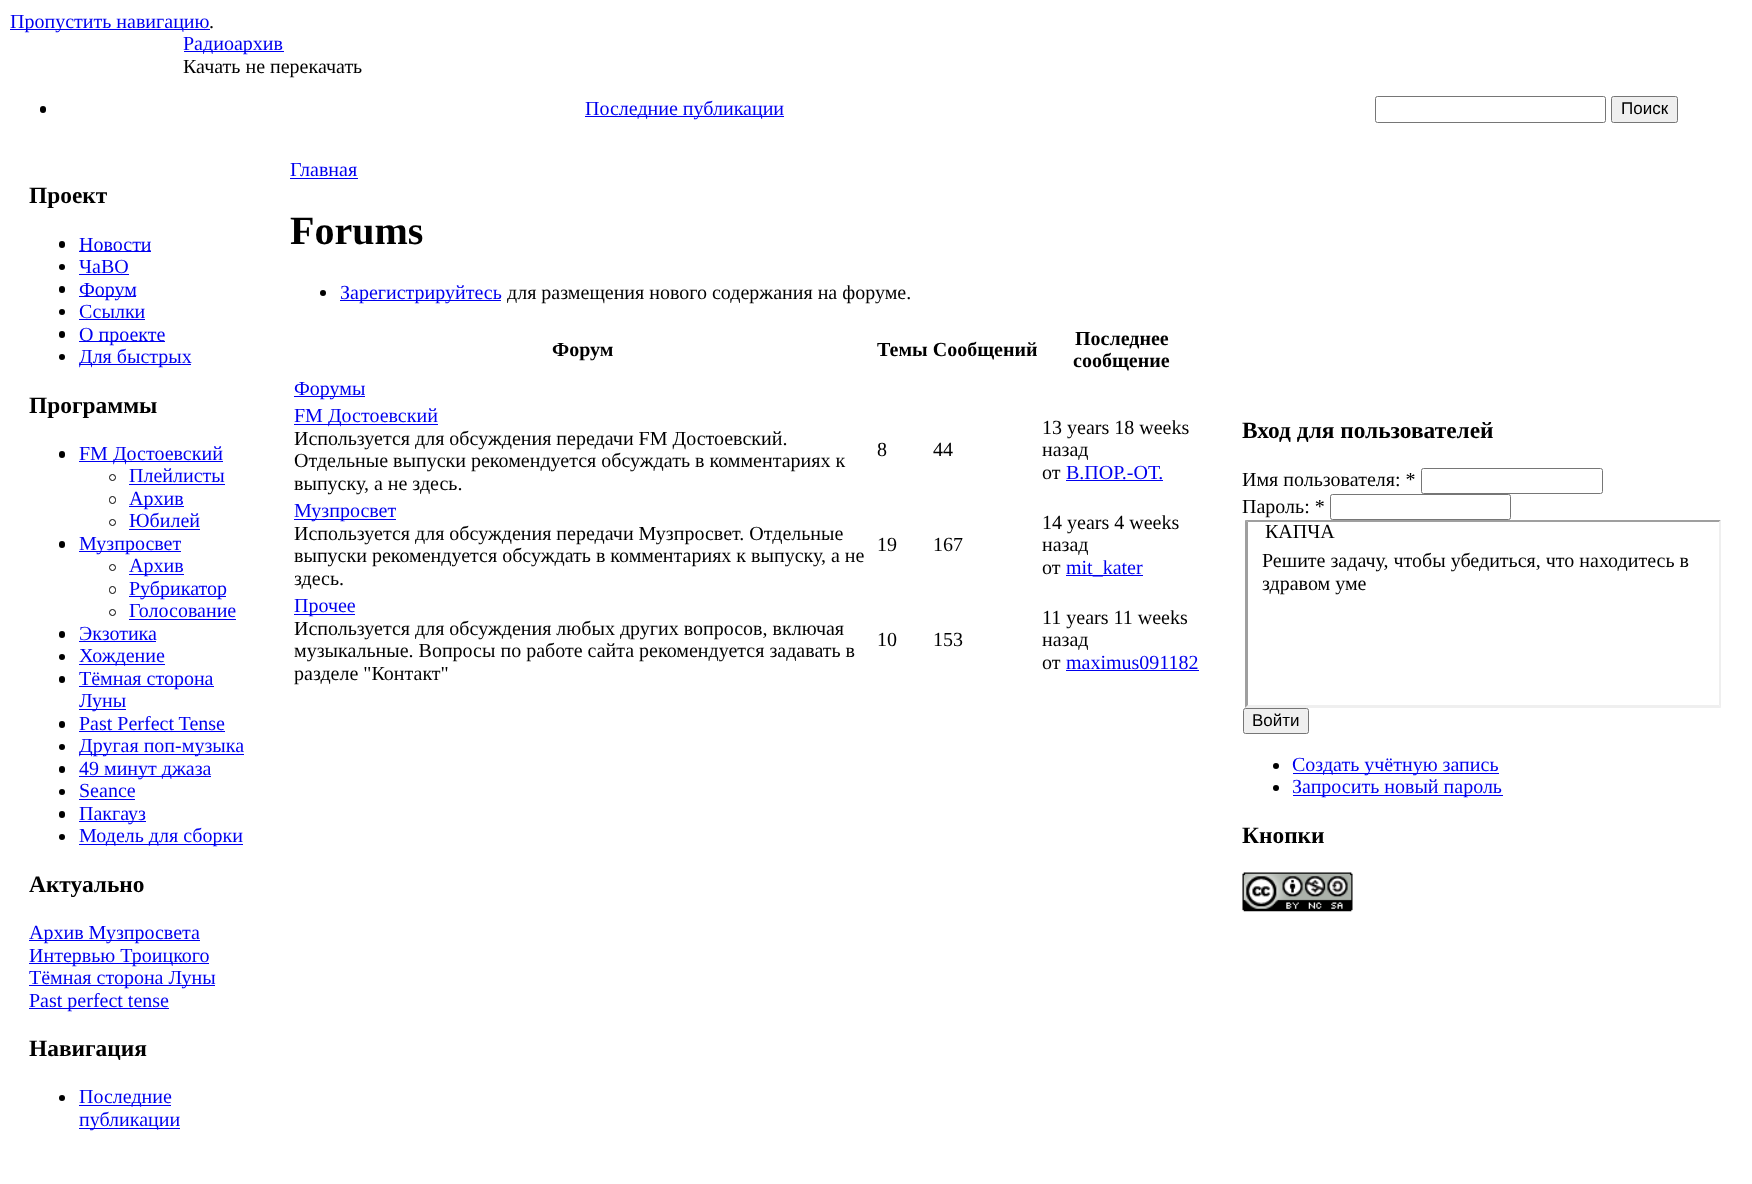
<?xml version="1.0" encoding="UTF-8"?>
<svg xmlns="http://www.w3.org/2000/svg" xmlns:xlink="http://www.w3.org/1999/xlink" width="1752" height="1184">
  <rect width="100%" height="100%" fill="#ffffff" />
  <rect x="10" y="29" width="200" height="1" fill="#0000ee" />
  <rect x="184" y="51" width="100" height="1" fill="#0000ee" />
  <rect x="40" y="106" width="6" height="7" rx="3" fill="#000000" />
  <rect x="585" y="116" width="199" height="1" fill="#0000ee" />
  <rect x="1375.5" y="96.5" width="230" height="26" rx="2" fill="none" stroke="#767676" />
  <rect x="1611.5" y="96.5" width="66" height="26" rx="2" fill="#efefef" stroke="#767676" />
  <rect x="59" y="241" width="6" height="7" rx="3" fill="#000000" />
  <rect x="79" y="251" width="72" height="1" fill="#0000ee" />
  <circle cx="62" cy="267" r="3" fill="#000000" />
  <rect x="79" y="274" width="50" height="1" fill="#0000ee" />
  <rect x="59" y="286" width="6" height="7" rx="3" fill="#000000" />
  <rect x="79" y="296" width="57" height="1" fill="#0000ee" />
  <circle cx="62" cy="312" r="3" fill="#000000" />
  <rect x="79" y="319" width="66" height="1" fill="#0000ee" />
  <rect x="59" y="331" width="6" height="7" rx="3" fill="#000000" />
  <rect x="79" y="341" width="86" height="1" fill="#0000ee" />
  <circle cx="62" cy="357" r="3" fill="#000000" />
  <rect x="79" y="364" width="112" height="1" fill="#0000ee" />
  <rect x="59" y="451" width="6" height="7" rx="3" fill="#000000" />
  <rect x="79" y="461" width="144" height="1" fill="#0000ee" />
  <circle cx="112.5" cy="477.5" r="3" fill="none" stroke="#000000" />
  <rect x="129" y="484" width="96" height="1" fill="#0000ee" />
  <rect x="109.5" y="496.5" width="6" height="7" rx="3" fill="none" stroke="#000000" />
  <rect x="129" y="506" width="55" height="1" fill="#0000ee" />
  <circle cx="112.5" cy="522.5" r="3" fill="none" stroke="#000000" />
  <rect x="129" y="529" width="71" height="1" fill="#0000ee" />
  <rect x="59" y="541" width="6" height="7" rx="3" fill="#000000" />
  <rect x="79" y="551" width="102" height="1" fill="#0000ee" />
  <circle cx="112.5" cy="567.5" r="3" fill="none" stroke="#000000" />
  <rect x="129" y="574" width="55" height="1" fill="#0000ee" />
  <rect x="109.5" y="586.5" width="6" height="7" rx="3" fill="none" stroke="#000000" />
  <rect x="129" y="596" width="97" height="1" fill="#0000ee" />
  <circle cx="112.5" cy="612.5" r="3" fill="none" stroke="#000000" />
  <rect x="129" y="619" width="107" height="1" fill="#0000ee" />
  <rect x="59" y="631" width="6" height="7" rx="3" fill="#000000" />
  <rect x="79" y="641" width="77" height="1" fill="#0000ee" />
  <circle cx="62" cy="657" r="3" fill="#000000" />
  <rect x="79" y="664" width="86" height="1" fill="#0000ee" />
  <rect x="59" y="676" width="6" height="7" rx="3" fill="#000000" />
  <rect x="79" y="686" width="135" height="1" fill="#0000ee" />
  <rect x="79" y="709" width="47" height="1" fill="#0000ee" />
  <rect x="59" y="721" width="6" height="7" rx="3" fill="#000000" />
  <rect x="79" y="731" width="146" height="1" fill="#0000ee" />
  <circle cx="62" cy="747" r="3" fill="#000000" />
  <rect x="79" y="754" width="165" height="1" fill="#0000ee" />
  <rect x="59" y="766" width="6" height="7" rx="3" fill="#000000" />
  <rect x="79" y="776" width="132" height="1" fill="#0000ee" />
  <circle cx="62" cy="792" r="3" fill="#000000" />
  <rect x="79" y="799" width="56" height="1" fill="#0000ee" />
  <rect x="59" y="811" width="6" height="7" rx="3" fill="#000000" />
  <rect x="79" y="821" width="67" height="1" fill="#0000ee" />
  <circle cx="62" cy="837" r="3" fill="#000000" />
  <rect x="79" y="844" width="164" height="1" fill="#0000ee" />
  <rect x="29" y="940" width="171" height="1" fill="#0000ee" />
  <rect x="29" y="963" width="180" height="1" fill="#0000ee" />
  <rect x="29" y="985" width="186" height="1" fill="#0000ee" />
  <rect x="29" y="1008" width="140" height="1" fill="#0000ee" />
  <circle cx="62" cy="1098" r="3" fill="#000000" />
  <rect x="79" y="1105" width="92" height="1" fill="#0000ee" />
  <rect x="79" y="1128" width="101" height="1" fill="#0000ee" />
  <rect x="290" y="178" width="68" height="1" fill="#0000ee" />
  <circle cx="323" cy="293" r="3" fill="#000000" />
  <rect x="340" y="300" width="161" height="1" fill="#0000ee" />
  <rect x="294" y="396" width="71" height="1" fill="#0000ee" />
  <rect x="294" y="424" width="144" height="1" fill="#0000ee" />
  <rect x="1066" y="480" width="97" height="1" fill="#0000ee" />
  <rect x="294" y="519" width="102" height="1" fill="#0000ee" />
  <rect x="1066" y="575" width="77" height="1" fill="#0000ee" />
  <rect x="294" y="614" width="61" height="1" fill="#0000ee" />
  <rect x="1066" y="670" width="133" height="1" fill="#0000ee" />
  <rect x="1421.5" y="468.5" width="181" height="25" rx="2" fill="none" stroke="#767676" />
  <rect x="1330.5" y="494.5" width="180" height="25" rx="2" fill="none" stroke="#767676" />
  <path d="M 1245 520 h 476 l -2 2 h -471 z" fill="#9f9f9f" />
  <path d="M 1721 520 v 188 l -2 -3 v -183 z" fill="#efefef" />
  <path d="M 1721 708 h -476 l 3 -3 h 471 z" fill="#efefef" />
  <path d="M 1245 708 v -188 l 3 2 v 183 z" fill="#9f9f9f" />
  <rect x="1243.5" y="708.5" width="65" height="25" rx="2" fill="#efefef" stroke="#767676" />
  <circle cx="1276" cy="766" r="3" fill="#000000" />
  <rect x="1293" y="773" width="206" height="1" fill="#0000ee" />
  <circle cx="1276" cy="788" r="3" fill="#000000" />
  <rect x="1293" y="795" width="210" height="1" fill="#0000ee" />
  <image x="1242" y="872" width="111" height="40" xlink:href="image1.png" />
  <text x="10" y="28" style="font-family: Liberation Serif; font-size: 20px; fill: #0000ee">Пропустить навигацию</text>
  <text x="209" y="28" style="font-family: Liberation Serif; font-size: 20px; fill: #000000">.</text>
  <text x="183" y="50" style="font-family: Liberation Serif; font-size: 20px; fill: #0000ee">Радиоархив</text>
  <text x="183" y="73" style="font-family: Liberation Serif; font-size: 20px; fill: #000000">Качать не перекачать</text>
  <text x="585" y="115" style="font-family: Liberation Serif; font-size: 20px; fill: #0000ee">Последние публикации</text>
  <text x="1621" y="114" style="font-family: Liberation Sans; font-size: 17px; fill: #000000">Поиск</text>
  <text x="29" y="203" style="font-family: Liberation Serif; font-size: 23.4px; font-weight: bold; fill: #000000">Проект</text>
  <text x="79" y="251" style="font-family: Liberation Serif; font-size: 20px; fill: #0000ee">Новости</text>
  <text x="79" y="273" style="font-family: Liberation Serif; font-size: 20px; fill: #0000ee">ЧаВО</text>
  <text x="79" y="296" style="font-family: Liberation Serif; font-size: 20px; fill: #0000ee">Форум</text>
  <text x="79" y="318" style="font-family: Liberation Serif; font-size: 20px; fill: #0000ee">Ссылки</text>
  <text x="79" y="341" style="font-family: Liberation Serif; font-size: 20px; fill: #0000ee">О проекте</text>
  <text x="79" y="363" style="font-family: Liberation Serif; font-size: 20px; fill: #0000ee">Для быстрых</text>
  <text x="29" y="413" style="font-family: Liberation Serif; font-size: 23.4px; font-weight: bold; fill: #000000">Программы</text>
  <text x="79" y="460" style="font-family: Liberation Serif; font-size: 20px; fill: #0000ee">FM Достоевский</text>
  <text x="129" y="482" style="font-family: Liberation Serif; font-size: 20px; fill: #0000ee">Плейлисты</text>
  <text x="129" y="505" style="font-family: Liberation Serif; font-size: 20px; fill: #0000ee">Архив</text>
  <text x="129" y="527" style="font-family: Liberation Serif; font-size: 20px; fill: #0000ee">Юбилей</text>
  <text x="79" y="550" style="font-family: Liberation Serif; font-size: 20px; fill: #0000ee">Музпросвет</text>
  <text x="129" y="572" style="font-family: Liberation Serif; font-size: 20px; fill: #0000ee">Архив</text>
  <text x="129" y="595" style="font-family: Liberation Serif; font-size: 20px; fill: #0000ee">Рубрикатор</text>
  <text x="129" y="617" style="font-family: Liberation Serif; font-size: 20px; fill: #0000ee">Голосование</text>
  <text x="79" y="640" style="font-family: Liberation Serif; font-size: 20px; fill: #0000ee">Экзотика</text>
  <text x="79" y="662" style="font-family: Liberation Serif; font-size: 20px; fill: #0000ee">Хождение</text>
  <text x="79" y="685" style="font-family: Liberation Serif; font-size: 20px; fill: #0000ee">Тёмная сторона</text>
  <text x="79" y="707" style="font-family: Liberation Serif; font-size: 20px; fill: #0000ee">Луны</text>
  <text x="79" y="730" style="font-family: Liberation Serif; font-size: 20px; fill: #0000ee">Past Perfect Tense</text>
  <text x="79" y="752" style="font-family: Liberation Serif; font-size: 20px; fill: #0000ee">Другая поп-музыка</text>
  <text x="79" y="775" style="font-family: Liberation Serif; font-size: 20px; fill: #0000ee">49 минут джаза</text>
  <text x="79" y="797" style="font-family: Liberation Serif; font-size: 20px; fill: #0000ee">Seance</text>
  <text x="79" y="820" style="font-family: Liberation Serif; font-size: 20px; fill: #0000ee">Пакгауз</text>
  <text x="79" y="842" style="font-family: Liberation Serif; font-size: 20px; fill: #0000ee">Модель для сборки</text>
  <text x="29" y="892" style="font-family: Liberation Serif; font-size: 23.4px; font-weight: bold; fill: #000000">Актуально</text>
  <text x="29" y="939" style="font-family: Liberation Serif; font-size: 20px; fill: #0000ee">Архив Музпросвета</text>
  <text x="29" y="962" style="font-family: Liberation Serif; font-size: 20px; fill: #0000ee">Интервью Троицкого</text>
  <text x="29" y="984" style="font-family: Liberation Serif; font-size: 20px; fill: #0000ee">Тёмная сторона Луны</text>
  <text x="29" y="1007" style="font-family: Liberation Serif; font-size: 20px; fill: #0000ee">Past perfect tense</text>
  <text x="29" y="1056" style="font-family: Liberation Serif; font-size: 23.4px; font-weight: bold; fill: #000000">Навигация</text>
  <text x="79" y="1103" style="font-family: Liberation Serif; font-size: 20px; fill: #0000ee">Последние</text>
  <text x="79" y="1126" style="font-family: Liberation Serif; font-size: 20px; fill: #0000ee">публикации</text>
  <text x="290" y="176" style="font-family: Liberation Serif; font-size: 20px; fill: #0000ee">Главная</text>
  <text x="290" y="244" style="font-family: Liberation Serif; font-size: 40px; font-weight: bold; fill: #000000">Forums</text>
  <text x="340" y="299" style="font-family: Liberation Serif; font-size: 20px; fill: #0000ee">Зарегистрируйтесь</text>
  <text x="507" y="299" style="font-family: Liberation Serif; font-size: 20px; fill: #000000">для размещения нового содержания на форуме.</text>
  <text x="552" y="356" style="font-family: Liberation Serif; font-size: 20px; font-weight: bold; fill: #000000">Форум</text>
  <text x="877" y="356" style="font-family: Liberation Serif; font-size: 20px; font-weight: bold; fill: #000000">Темы Сообщений</text>
  <text x="1075" y="345" style="font-family: Liberation Serif; font-size: 20px; font-weight: bold; fill: #000000">Последнее</text>
  <text x="1073" y="367" style="font-family: Liberation Serif; font-size: 20px; font-weight: bold; fill: #000000">сообщение</text>
  <text x="294" y="395" style="font-family: Liberation Serif; font-size: 20px; fill: #0000ee">Форумы</text>
  <text x="294" y="422" style="font-family: Liberation Serif; font-size: 20px; fill: #0000ee">FM Достоевский</text>
  <text x="294" y="445" style="font-family: Liberation Serif; font-size: 20px; fill: #000000">Используется для обсуждения передачи FM Достоевский.</text>
  <text x="294" y="467" style="font-family: Liberation Serif; font-size: 20px; fill: #000000">Отдельные выпуски рекомендуется обсуждать в комментариях к</text>
  <text x="294" y="490" style="font-family: Liberation Serif; font-size: 20px; fill: #000000">выпуску, а не здесь.</text>
  <text x="877" y="456" style="font-family: Liberation Serif; font-size: 20px; fill: #000000">8</text>
  <text x="933" y="456" style="font-family: Liberation Serif; font-size: 20px; fill: #000000">44</text>
  <text x="1042" y="434" style="font-family: Liberation Serif; font-size: 20px; fill: #000000">13 years 18 weeks</text>
  <text x="1042" y="456" style="font-family: Liberation Serif; font-size: 20px; fill: #000000">назад</text>
  <text x="1042" y="479" style="font-family: Liberation Serif; font-size: 20px; fill: #000000">от</text>
  <text x="1066" y="479" style="font-family: Liberation Serif; font-size: 20px; fill: #0000ee">В.ПОР.-ОТ.</text>
  <text x="294" y="517" style="font-family: Liberation Serif; font-size: 20px; fill: #0000ee">Музпросвет</text>
  <text x="294" y="540" style="font-family: Liberation Serif; font-size: 20px; fill: #000000">Используется для обсуждения передачи Музпросвет. Отдельные</text>
  <text x="294" y="562" style="font-family: Liberation Serif; font-size: 20px; fill: #000000">выпуски рекомендуется обсуждать в комментариях к выпуску, а не</text>
  <text x="294" y="585" style="font-family: Liberation Serif; font-size: 20px; fill: #000000">здесь.</text>
  <text x="877" y="551" style="font-family: Liberation Serif; font-size: 20px; fill: #000000">19</text>
  <text x="933" y="551" style="font-family: Liberation Serif; font-size: 20px; fill: #000000">167</text>
  <text x="1042" y="529" style="font-family: Liberation Serif; font-size: 20px; fill: #000000">14 years 4 weeks</text>
  <text x="1042" y="551" style="font-family: Liberation Serif; font-size: 20px; fill: #000000">назад</text>
  <text x="1042" y="574" style="font-family: Liberation Serif; font-size: 20px; fill: #000000">от</text>
  <text x="1066" y="574" style="font-family: Liberation Serif; font-size: 20px; fill: #0000ee">mit_kater</text>
  <text x="294" y="612" style="font-family: Liberation Serif; font-size: 20px; fill: #0000ee">Прочее</text>
  <text x="294" y="635" style="font-family: Liberation Serif; font-size: 20px; fill: #000000">Используется для обсуждения любых других вопросов, включая</text>
  <text x="294" y="657" style="font-family: Liberation Serif; font-size: 20px; fill: #000000">музыкальные. Вопросы по работе сайта рекомендуется задавать в</text>
  <text x="294" y="680" style="font-family: Liberation Serif; font-size: 20px; fill: #000000">разделе "Контакт"</text>
  <text x="877" y="646" style="font-family: Liberation Serif; font-size: 20px; fill: #000000">10</text>
  <text x="933" y="646" style="font-family: Liberation Serif; font-size: 20px; fill: #000000">153</text>
  <text x="1042" y="624" style="font-family: Liberation Serif; font-size: 20px; fill: #000000">11 years 11 weeks</text>
  <text x="1042" y="646" style="font-family: Liberation Serif; font-size: 20px; fill: #000000">назад</text>
  <text x="1042" y="669" style="font-family: Liberation Serif; font-size: 20px; fill: #000000">от</text>
  <text x="1066" y="669" style="font-family: Liberation Serif; font-size: 20px; fill: #0000ee">maximus091182</text>
  <text x="1242" y="438" style="font-family: Liberation Serif; font-size: 23.4px; font-weight: bold; fill: #000000">Вход для пользователей</text>
  <text x="1242" y="486" style="font-family: Liberation Serif; font-size: 20px; fill: #000000">Имя пользователя: *</text>
  <text x="1242" y="513" style="font-family: Liberation Serif; font-size: 20px; fill: #000000">Пароль: *</text>
  <text x="1265" y="538" style="font-family: Liberation Serif; font-size: 20px; fill: #000000">КАПЧА</text>
  <text x="1262" y="567" style="font-family: Liberation Serif; font-size: 20px; fill: #000000">Решите задачу, чтобы убедиться, что находитесь в</text>
  <text x="1262" y="590" style="font-family: Liberation Serif; font-size: 20px; fill: #000000">здравом уме</text>
  <text x="1252" y="726" style="font-family: Liberation Sans; font-size: 17px; fill: #000000">Войти</text>
  <text x="1292" y="771" style="font-family: Liberation Serif; font-size: 20px; fill: #0000ee">Создать учётную запись</text>
  <text x="1292" y="793" style="font-family: Liberation Serif; font-size: 20px; fill: #0000ee">Запросить новый пароль</text>
  <text x="1242" y="843" style="font-family: Liberation Serif; font-size: 23.4px; font-weight: bold; fill: #000000">Кнопки</text>
</svg>
